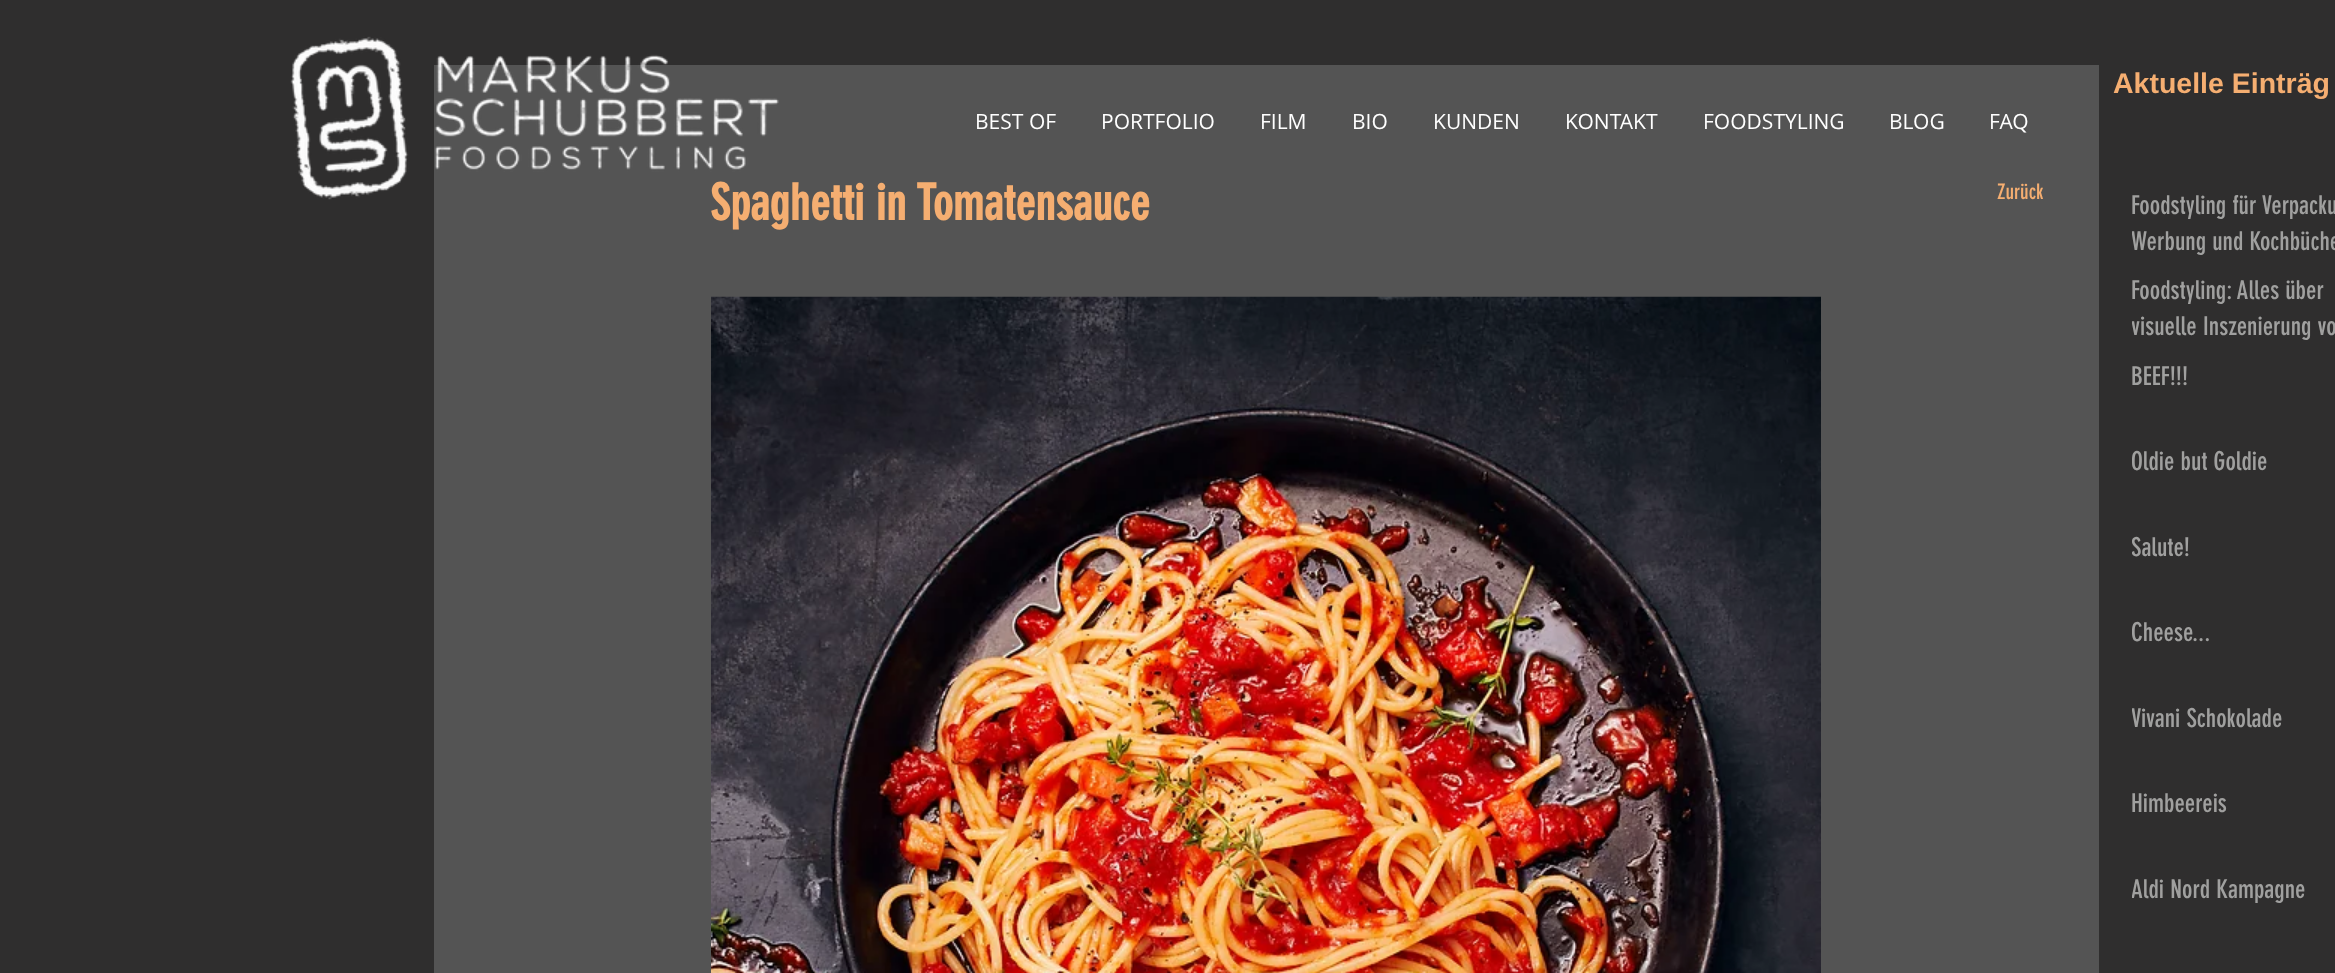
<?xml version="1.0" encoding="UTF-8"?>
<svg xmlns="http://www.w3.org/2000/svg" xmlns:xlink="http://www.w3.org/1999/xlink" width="2335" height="973">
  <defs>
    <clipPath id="clip1"><rect x="2132" y="189" width="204" height="68" /></clipPath>
    <clipPath id="clip2"><rect x="2132" y="275" width="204" height="67" /></clipPath>
    <clipPath id="clip3"><rect x="2132" y="446" width="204" height="34" /></clipPath>
    <clipPath id="clip4"><rect x="2132" y="531" width="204" height="35" /></clipPath>
    <clipPath id="clip5"><rect x="2132" y="617" width="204" height="34" /></clipPath>
    <clipPath id="clip6"><rect x="2132" y="702" width="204" height="35" /></clipPath>
    <clipPath id="clip7"><rect x="2132" y="873" width="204" height="35" /></clipPath>
  </defs>
  <rect width="100%" height="100%" fill="#2f2e2e" />
  <rect x="434" y="65" width="1665" height="908" fill="#545454" />
  <image x="711" y="296" width="1110" height="677" xlink:href="image1.png" />
  <text x="2113" y="93" style="font-family: Liberation Sans; font-size: 28.5px; font-weight: bold; fill: #f5ae71">Aktuelle Einträg</text>
  <text x="710" y="220" style="font-family: 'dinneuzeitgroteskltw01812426'; font-size: 49.5px; font-weight: bold; fill: #f5ae71">Spaghetti in Tomatensauce</text>
  <text x="1997" y="199" style="font-family: 'dinneuzeitgroteskltw01812426'; font-size: 21px; fill: #f5ae71">Zurück</text>
  <text x="2131" y="214" style="font-family: 'dinneuzeitgroteskltw01812426'; font-size: 25.5px; fill: #a0a09f">Foodstyling für Verpacku</text>
  <g clip-path="url(#clip1)">
    <text x="2131" y="250" style="font-family: 'dinneuzeitgroteskltw01812426'; font-size: 25.5px; fill: #a0a09f">Werbung und Kochbüche</text>
  </g>
  <text x="2131" y="299" style="font-family: 'dinneuzeitgroteskltw01812426'; font-size: 25.5px; fill: #a0a09f">Foodstyling: Alles über</text>
  <g clip-path="url(#clip2)">
    <text x="2131" y="335" style="font-family: 'dinneuzeitgroteskltw01812426'; font-size: 25.5px; fill: #a0a09f">visuelle Inszenierung vo</text>
  </g>
  <text x="2131" y="385" style="font-family: 'dinneuzeitgroteskltw01812426'; font-size: 25.5px; fill: #a0a09f">BEEF!!!</text>
  <g clip-path="url(#clip3)">
    <text x="2131" y="470" style="font-family: 'dinneuzeitgroteskltw01812426'; font-size: 25.5px; fill: #a0a09f">Oldie but Goldie</text>
  </g>
  <g clip-path="url(#clip4)">
    <text x="2131" y="556" style="font-family: 'dinneuzeitgroteskltw01812426'; font-size: 25.5px; fill: #a0a09f">Salute!</text>
  </g>
  <g clip-path="url(#clip5)">
    <text x="2131" y="641" style="font-family: 'dinneuzeitgroteskltw01812426'; font-size: 25.5px; fill: #a0a09f">Cheese...</text>
  </g>
  <g clip-path="url(#clip6)">
    <text x="2131" y="727" style="font-family: 'dinneuzeitgroteskltw01812426'; font-size: 25.5px; fill: #a0a09f">Vivani Schokolade</text>
  </g>
  <text x="2131" y="812" style="font-family: 'dinneuzeitgroteskltw01812426'; font-size: 25.5px; fill: #a0a09f">Himbeereis</text>
  <g clip-path="url(#clip7)">
    <text x="2131" y="898" style="font-family: 'dinneuzeitgroteskltw01812426'; font-size: 25.5px; fill: #a0a09f">Aldi Nord Kampagne</text>
  </g>
  <image x="290" y="36" width="489" height="164" xlink:href="image2.png" />
  <text x="975" y="129" style="font-family: Open Sans; font-size: 21px; fill: #ffffff">BEST OF</text>
  <text x="1101" y="129" style="font-family: Open Sans; font-size: 21px; fill: #ffffff">PORTFOLIO</text>
  <text x="1260" y="129" style="font-family: Open Sans; font-size: 21px; fill: #ffffff">FILM</text>
  <text x="1352" y="129" style="font-family: Open Sans; font-size: 21px; fill: #ffffff">BIO</text>
  <text x="1433" y="129" style="font-family: Open Sans; font-size: 21px; fill: #ffffff">KUNDEN</text>
  <text x="1565" y="129" style="font-family: Open Sans; font-size: 21px; fill: #ffffff">KONTAKT</text>
  <text x="1703" y="129" style="font-family: Open Sans; font-size: 21px; fill: #ffffff">FOODSTYLING</text>
  <text x="1889" y="129" style="font-family: Open Sans; font-size: 21px; fill: #ffffff">BLOG</text>
  <text x="1989" y="129" style="font-family: Open Sans; font-size: 21px; fill: #ffffff">FAQ</text>
</svg>
